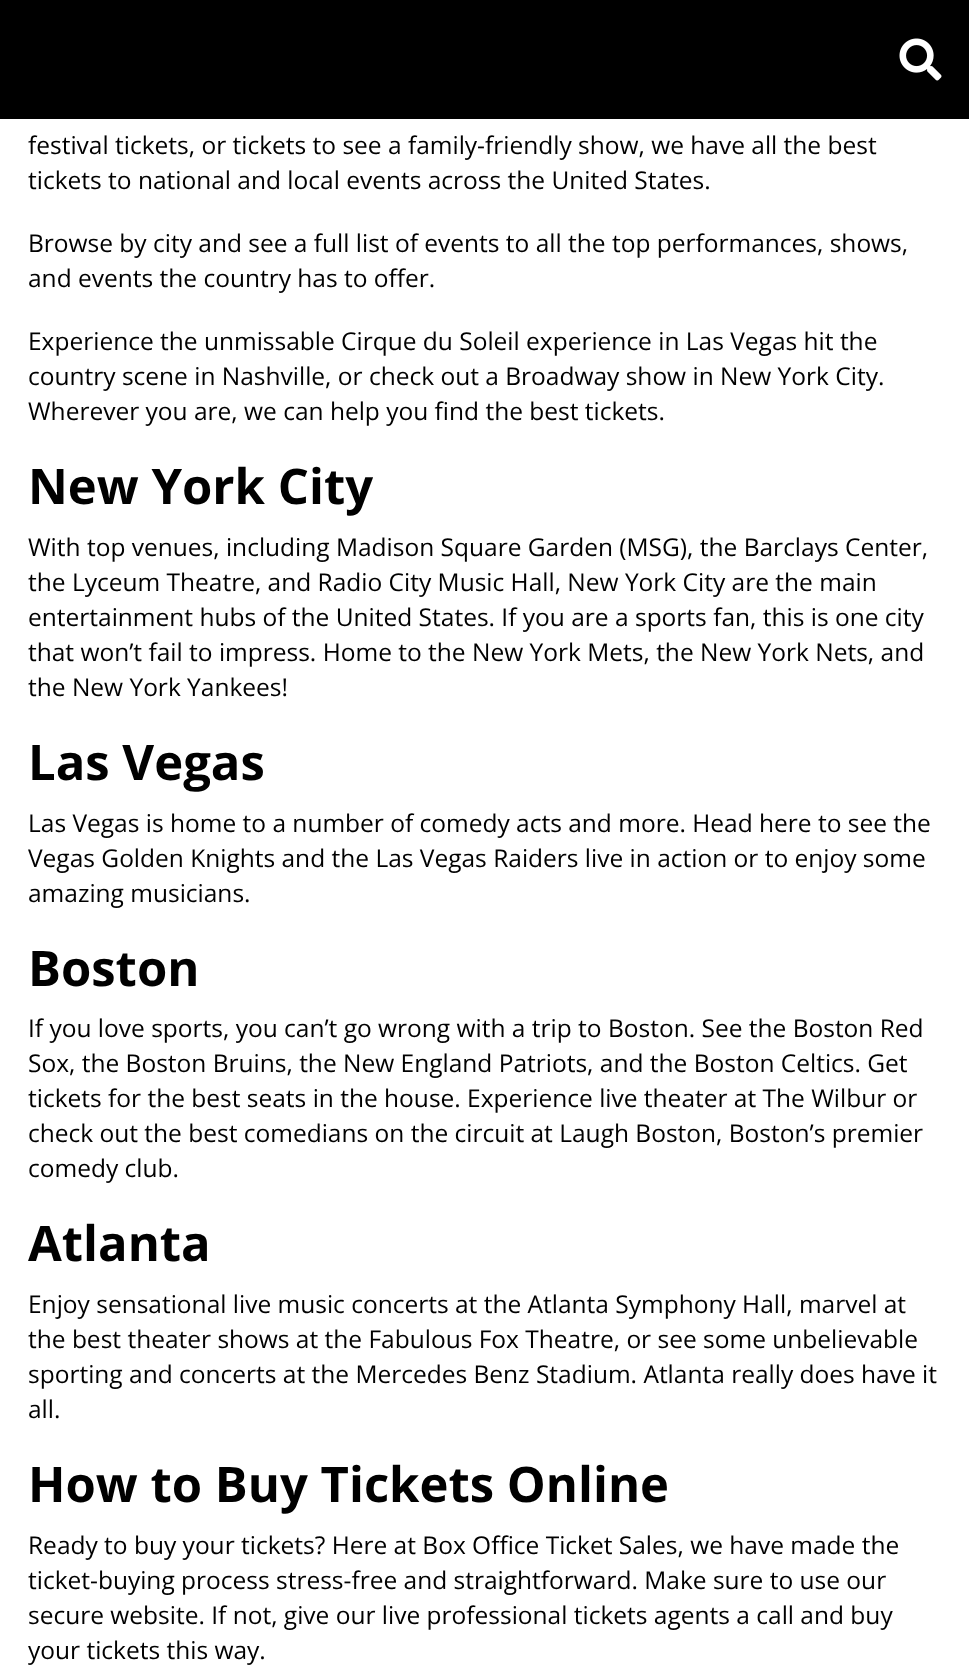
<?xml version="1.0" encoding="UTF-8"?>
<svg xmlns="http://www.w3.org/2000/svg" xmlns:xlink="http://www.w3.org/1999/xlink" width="969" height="1680">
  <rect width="100%" height="100%" fill="#ffffff" />
  <rect width="969" height="119" fill="#000000" />
  <image x="899" y="38" width="43" height="43" xlink:href="image1.png" />
  <text x="28" y="154" style="font-family: Open Sans; font-size: 24.5px; fill: #000000">festival tickets, or tickets to see a family-friendly show, we have all the best</text>
  <text x="28" y="189" style="font-family: Open Sans; font-size: 24.5px; fill: #000000">tickets to national and local events across the United States.</text>
  <text x="28" y="252" style="font-family: Open Sans; font-size: 24.5px; fill: #000000">Browse by city and see a full list of events to all the top performances, shows,</text>
  <text x="28" y="287" style="font-family: Open Sans; font-size: 24.5px; fill: #000000">and events the country has to offer.</text>
  <text x="28" y="350" style="font-family: Open Sans; font-size: 24.5px; fill: #000000">Experience the unmissable Cirque du Soleil experience in Las Vegas hit the</text>
  <text x="28" y="385" style="font-family: Open Sans; font-size: 24.5px; fill: #000000">country scene in Nashville, or check out a Broadway show in New York City.</text>
  <text x="28" y="420" style="font-family: Open Sans; font-size: 24.5px; fill: #000000">Wherever you are, we can help you find the best tickets.</text>
  <text x="28" y="504" style="font-family: Open Sans; font-size: 49px; font-weight: bold; fill: #000000">New York City</text>
  <text x="28" y="556" style="font-family: Open Sans; font-size: 24.5px; fill: #000000">With top venues, including Madison Square Garden (MSG), the Barclays Center,</text>
  <text x="28" y="591" style="font-family: Open Sans; font-size: 24.5px; fill: #000000">the Lyceum Theatre, and Radio City Music Hall, New York City are the main</text>
  <text x="28" y="626" style="font-family: Open Sans; font-size: 24.5px; fill: #000000">entertainment hubs of the United States. If you are a sports fan, this is one city</text>
  <text x="28" y="661" style="font-family: Open Sans; font-size: 24.5px; fill: #000000">that won’t fail to impress. Home to the New York Mets, the New York Nets, and</text>
  <text x="28" y="696" style="font-family: Open Sans; font-size: 24.5px; fill: #000000">the New York Yankees!</text>
  <text x="28" y="780" style="font-family: Open Sans; font-size: 49px; font-weight: bold; fill: #000000">Las Vegas</text>
  <text x="28" y="832" style="font-family: Open Sans; font-size: 24.5px; fill: #000000">Las Vegas is home to a number of comedy acts and more. Head here to see the</text>
  <text x="28" y="867" style="font-family: Open Sans; font-size: 24.5px; fill: #000000">Vegas Golden Knights and the Las Vegas Raiders live in action or to enjoy some</text>
  <text x="28" y="902" style="font-family: Open Sans; font-size: 24.5px; fill: #000000">amazing musicians.</text>
  <text x="28" y="986" style="font-family: Open Sans; font-size: 49px; font-weight: bold; fill: #000000">Boston</text>
  <text x="28" y="1037" style="font-family: Open Sans; font-size: 24.5px; fill: #000000">If you love sports, you can’t go wrong with a trip to Boston. See the Boston Red</text>
  <text x="28" y="1072" style="font-family: Open Sans; font-size: 24.5px; fill: #000000">Sox, the Boston Bruins, the New England Patriots, and the Boston Celtics. Get</text>
  <text x="28" y="1107" style="font-family: Open Sans; font-size: 24.5px; fill: #000000">tickets for the best seats in the house. Experience live theater at The Wilbur or</text>
  <text x="28" y="1142" style="font-family: Open Sans; font-size: 24.5px; fill: #000000">check out the best comedians on the circuit at Laugh Boston, Boston’s premier</text>
  <text x="28" y="1177" style="font-family: Open Sans; font-size: 24.5px; fill: #000000">comedy club.</text>
  <text x="28" y="1261" style="font-family: Open Sans; font-size: 49px; font-weight: bold; fill: #000000">Atlanta</text>
  <text x="28" y="1313" style="font-family: Open Sans; font-size: 24.5px; fill: #000000">Enjoy sensational live music concerts at the Atlanta Symphony Hall, marvel at</text>
  <text x="28" y="1348" style="font-family: Open Sans; font-size: 24.5px; fill: #000000">the best theater shows at the Fabulous Fox Theatre, or see some unbelievable</text>
  <text x="28" y="1383" style="font-family: Open Sans; font-size: 24.5px; fill: #000000">sporting and concerts at the Mercedes Benz Stadium. Atlanta really does have it</text>
  <text x="28" y="1418" style="font-family: Open Sans; font-size: 24.5px; fill: #000000">all.</text>
  <text x="28" y="1502" style="font-family: Open Sans; font-size: 49px; font-weight: bold; fill: #000000">How to Buy Tickets Online</text>
  <text x="28" y="1554" style="font-family: Open Sans; font-size: 24.5px; fill: #000000">Ready to buy your tickets? Here at Box Office Ticket Sales, we have made the</text>
  <text x="28" y="1589" style="font-family: Open Sans; font-size: 24.5px; fill: #000000">ticket-buying process stress-free and straightforward. Make sure to use our</text>
  <text x="28" y="1624" style="font-family: Open Sans; font-size: 24.5px; fill: #000000">secure website. If not, give our live professional tickets agents a call and buy</text>
  <text x="28" y="1659" style="font-family: Open Sans; font-size: 24.5px; fill: #000000">your tickets this way.</text>
</svg>
